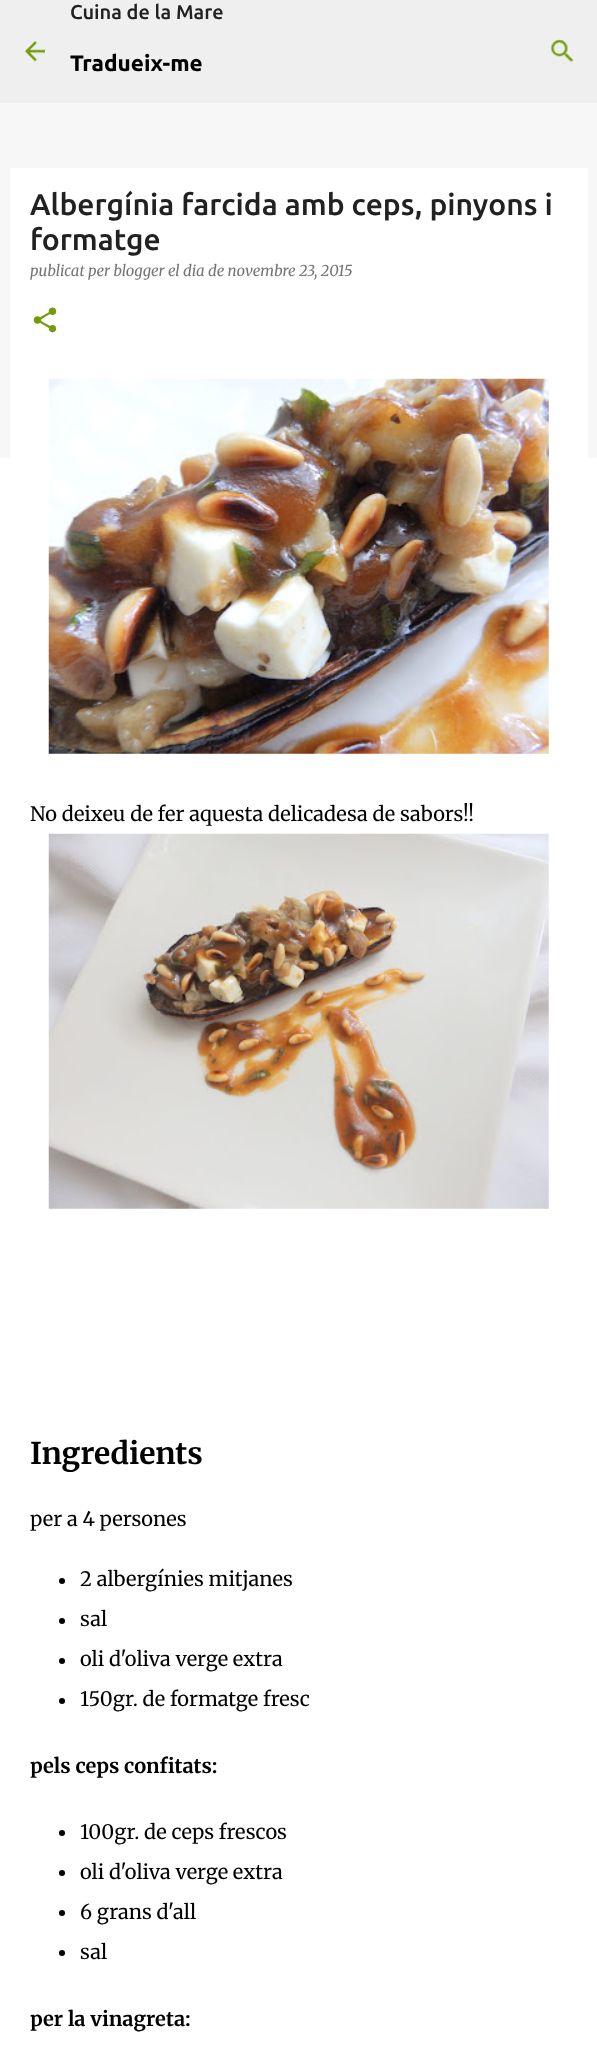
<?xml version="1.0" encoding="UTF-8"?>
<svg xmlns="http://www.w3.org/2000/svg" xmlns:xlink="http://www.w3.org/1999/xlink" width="597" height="2066">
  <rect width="100%" height="100%" fill="#f7f7f7" />
  <rect width="597" height="103" fill="#efefef" />
  <image x="25" y="41" width="20" height="21" xlink:href="image1.png" />
  <image x="550" y="39" width="24" height="24" xlink:href="image2.png" />
  <rect y="458" width="597" height="1608" fill="#ffffff" />
  <rect x="10" y="168" width="578" height="290" fill="#ffffff" />
  <image x="33" y="307" width="24" height="26" xlink:href="image3.png" />
  <image x="48" y="378" width="501" height="376" xlink:href="image4.png" />
  <image x="48" y="833" width="501" height="376" xlink:href="image5.png" />
  <circle cx="62" cy="1581" r="3" fill="#000000" />
  <circle cx="62" cy="1621" r="3" fill="#000000" />
  <circle cx="62" cy="1661" r="3" fill="#000000" />
  <circle cx="62" cy="1701" r="3" fill="#000000" />
  <circle cx="62" cy="1833" r="3" fill="#000000" />
  <circle cx="62" cy="1873" r="3" fill="#000000" />
  <circle cx="62" cy="1913" r="3" fill="#000000" />
  <circle cx="62" cy="1953" r="3" fill="#000000" />
  <text x="70" y="19" style="font-family: Ubuntu; font-size: 20px; font-weight: 500; fill: #212121">Cuina de la Mare</text>
  <text x="70" y="71" style="font-family: Ubuntu; font-size: 22.5px; font-weight: bold; fill: #000000">Tradueix-me</text>
  <text x="30" y="215" style="font-family: Ubuntu; font-size: 30px; font-weight: 500; fill: #212121">Albergínia farcida amb ceps, pinyons i</text>
  <text x="30" y="250" style="font-family: Ubuntu; font-size: 30px; font-weight: 500; fill: #212121">formatge</text>
  <text x="30" y="276" style="font-family: Merriweather; font-size: 15px; font-style: italic; fill: #757575">publicat per blogger el dia de novembre 23, 2015</text>
  <text x="30" y="821" style="font-family: Merriweather; font-size: 20px; fill: #000000">No deixeu de fer aquesta delicadesa de sabors!!</text>
  <text x="30" y="1464" style="font-family: Merriweather; font-size: 30px; font-weight: bold; fill: #000000">Ingredients</text>
  <text x="30" y="1526" style="font-family: Merriweather; font-size: 20px; fill: #000000">per a 4 persones</text>
  <text x="80" y="1586" style="font-family: Merriweather; font-size: 20px; fill: #000000">2 albergínies mitjanes</text>
  <text x="80" y="1626" style="font-family: Merriweather; font-size: 20px; fill: #000000">sal</text>
  <text x="80" y="1666" style="font-family: Merriweather; font-size: 20px; fill: #000000">oli d'oliva verge extra</text>
  <text x="80" y="1706" style="font-family: Merriweather; font-size: 20px; fill: #000000">150gr. de formatge fresc</text>
  <text x="30" y="1773" style="font-family: Merriweather; font-size: 20px; font-weight: bold; fill: #000000">pels ceps confitats:</text>
  <text x="80" y="1839" style="font-family: Merriweather; font-size: 20px; fill: #000000">100gr. de ceps frescos</text>
  <text x="80" y="1879" style="font-family: Merriweather; font-size: 20px; fill: #000000">oli d'oliva verge extra</text>
  <text x="80" y="1919" style="font-family: Merriweather; font-size: 20px; fill: #000000">6 grans d'all</text>
  <text x="80" y="1959" style="font-family: Merriweather; font-size: 20px; fill: #000000">sal</text>
  <text x="30" y="2026" style="font-family: Merriweather; font-size: 20px; font-weight: bold; fill: #000000">per la vinagreta:</text>
</svg>
